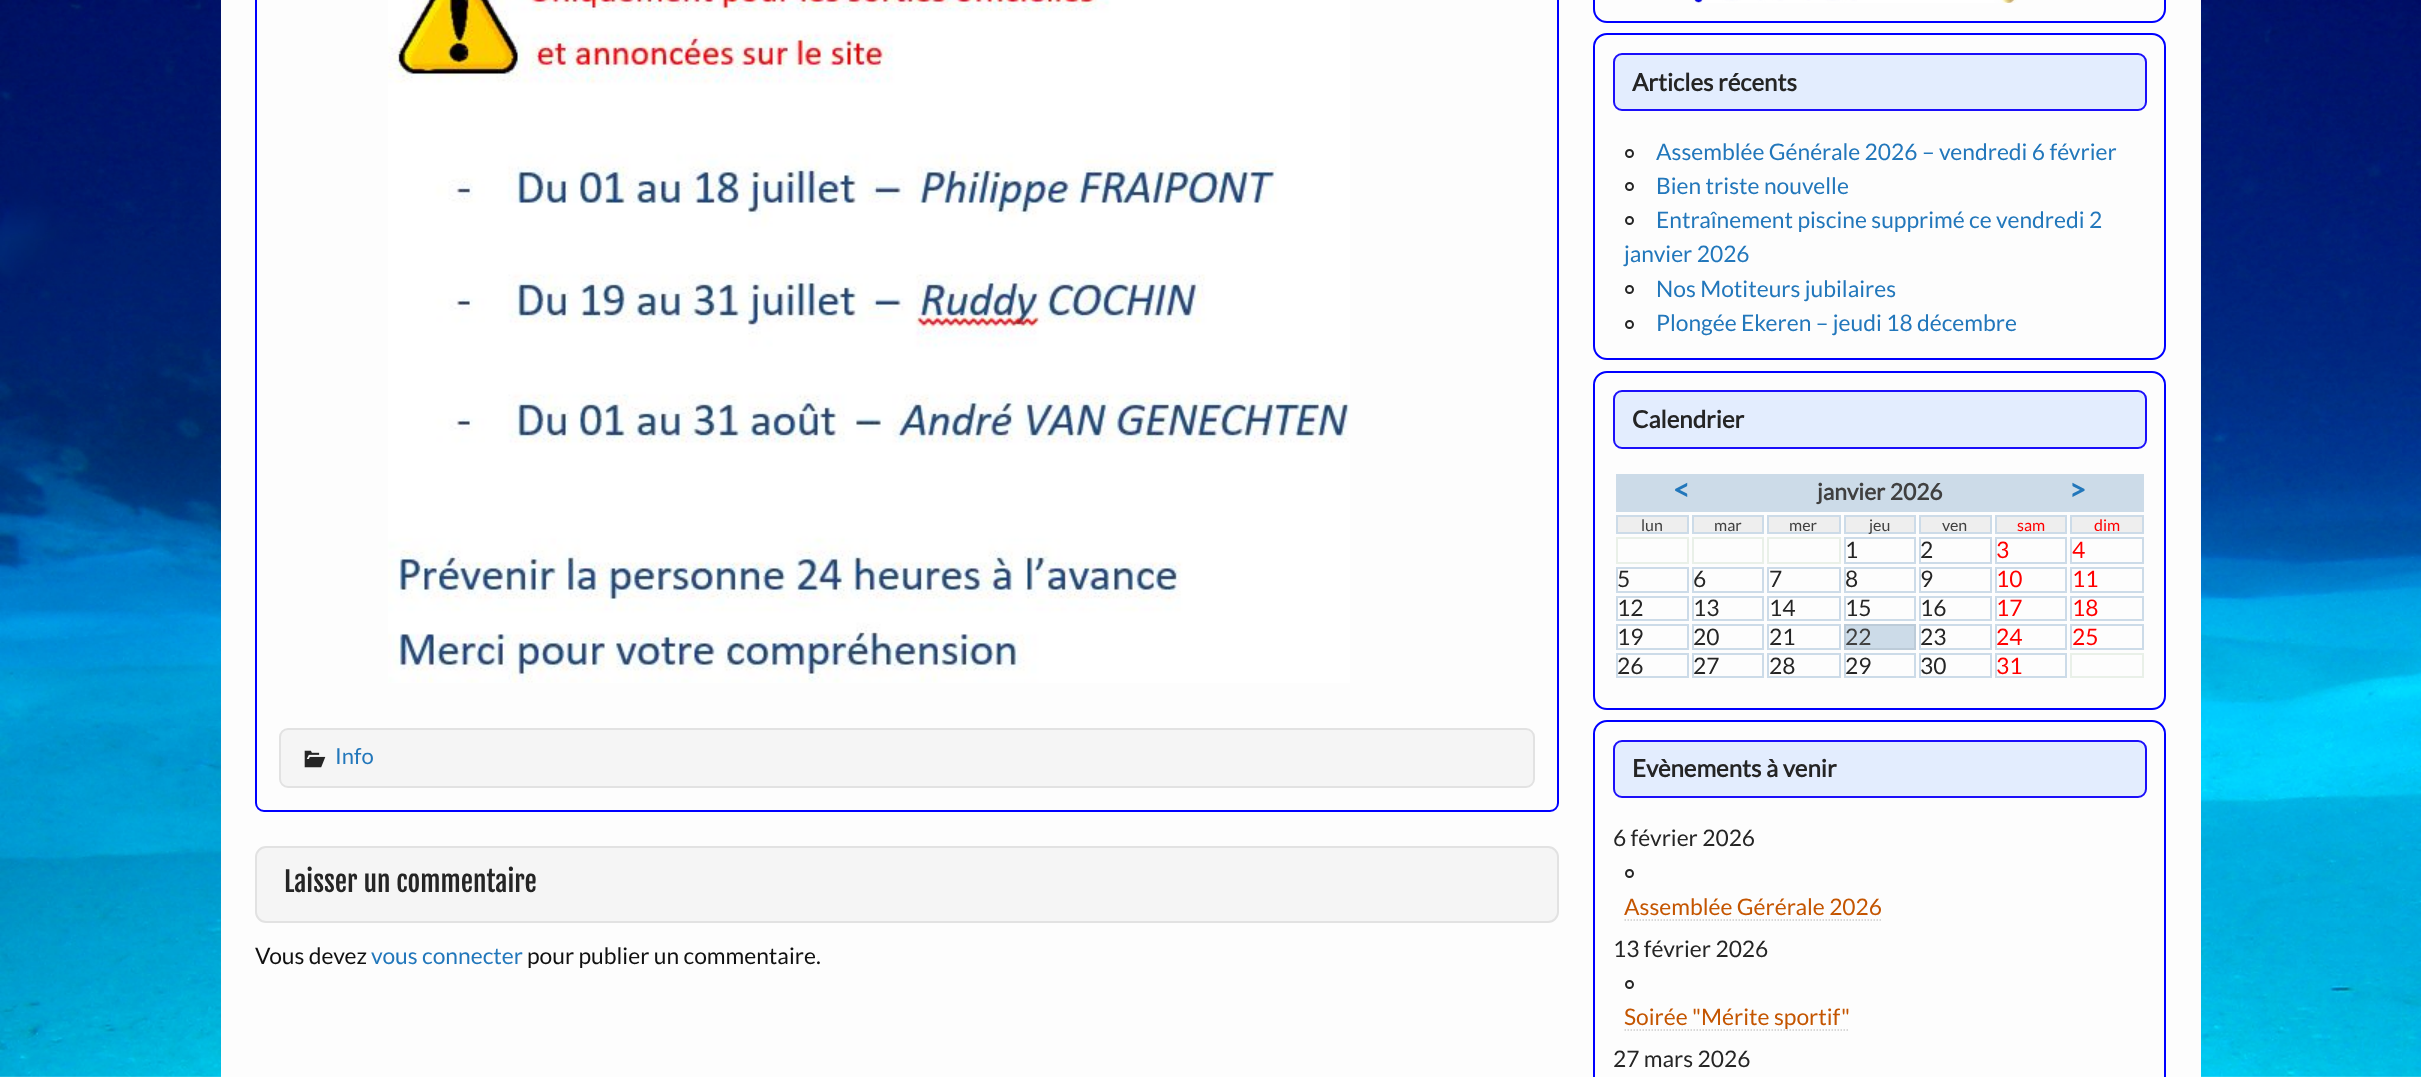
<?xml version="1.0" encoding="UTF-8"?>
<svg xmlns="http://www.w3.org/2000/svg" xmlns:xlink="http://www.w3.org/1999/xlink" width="2421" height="1077">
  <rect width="100%" height="100%" fill="#ffffff" />
  <image x="0" y="0" width="2421" height="1077" xlink:href="image1.png" />
  <rect x="221" width="1980" height="1077" fill="#fdfdfd" />
  <rect x="256" y="-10" width="1302" height="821" rx="8" fill="none" stroke="#0000ff" stroke-width="2" />
  <image x="388" y="0" width="962" height="683" xlink:href="image2.png" />
  <rect x="280" y="729" width="1254" height="58" rx="8" fill="#f5f5f5" stroke="#e2e2e2" stroke-width="2" />
  <image x="304" y="750" width="22" height="18" xlink:href="image3.png" />
  <rect x="256" y="847" width="1302" height="75" rx="10" fill="#f5f5f5" stroke="#e2e2e2" stroke-width="2" />
  <rect x="1594" y="-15" width="571" height="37" rx="13" fill="none" stroke="#0000ff" stroke-width="2" />
  <image x="1694" y="0" width="323" height="3" xlink:href="image4.png" />
  <rect x="1594" y="34" width="571" height="325" rx="13" fill="none" stroke="#0000ff" stroke-width="2" />
  <rect x="1614" y="54" width="532" height="56" rx="8" fill="#e3edfe" stroke="#1b0ffa" stroke-width="2" />
  <circle cx="1629.5" cy="153.5" r="3.5" fill="none" stroke="#252525" stroke-width="2" />
  <circle cx="1629.5" cy="186.5" r="3.5" fill="none" stroke="#252525" stroke-width="2" />
  <circle cx="1629.5" cy="220.5" r="3.5" fill="none" stroke="#252525" stroke-width="2" />
  <circle cx="1629.5" cy="289.5" r="3.5" fill="none" stroke="#252525" stroke-width="2" />
  <circle cx="1629.5" cy="324.5" r="3.5" fill="none" stroke="#252525" stroke-width="2" />
  <rect x="1594" y="372" width="571" height="337" rx="13" fill="none" stroke="#0000ff" stroke-width="2" />
  <rect x="1614" y="391" width="532" height="57" rx="8" fill="#e3edfe" stroke="#1b0ffa" stroke-width="2" />
  <rect x="1616" y="474" width="528" height="38" fill="#ccdbe8" />
  <rect x="1617" y="516" width="71" height="17" fill="#eeeeee" stroke="#ccdbe8" stroke-width="2" />
  <rect x="1693" y="516" width="70" height="17" fill="#eeeeee" stroke="#ccdbe8" stroke-width="2" />
  <rect x="1768" y="516" width="72" height="17" fill="#eeeeee" stroke="#ccdbe8" stroke-width="2" />
  <rect x="1845" y="516" width="70" height="17" fill="#eeeeee" stroke="#ccdbe8" stroke-width="2" />
  <rect x="1920" y="516" width="71" height="17" fill="#eeeeee" stroke="#ccdbe8" stroke-width="2" />
  <rect x="1996" y="516" width="70" height="17" fill="#eeeeee" stroke="#ccdbe8" stroke-width="2" />
  <rect x="2071" y="516" width="72" height="17" fill="#eeeeee" stroke="#ccdbe8" stroke-width="2" />
  <rect x="1617" y="538" width="71" height="25" fill="none" stroke="#e9f0e8" stroke-width="2" />
  <rect x="1693" y="538" width="70" height="25" fill="none" stroke="#e9f0e8" stroke-width="2" />
  <rect x="1768" y="538" width="72" height="25" fill="none" stroke="#e9f0e8" stroke-width="2" />
  <rect x="1845" y="538" width="70" height="25" fill="none" stroke="#ccdbe8" stroke-width="2" />
  <rect x="1920" y="538" width="71" height="25" fill="none" stroke="#ccdbe8" stroke-width="2" />
  <rect x="1996" y="538" width="70" height="25" fill="none" stroke="#ccdbe8" stroke-width="2" />
  <rect x="2071" y="538" width="72" height="25" fill="none" stroke="#ccdbe8" stroke-width="2" />
  <rect x="1617" y="568" width="71" height="24" fill="none" stroke="#ccdbe8" stroke-width="2" />
  <rect x="1693" y="568" width="70" height="24" fill="none" stroke="#ccdbe8" stroke-width="2" />
  <rect x="1768" y="568" width="72" height="24" fill="none" stroke="#ccdbe8" stroke-width="2" />
  <rect x="1845" y="568" width="70" height="24" fill="none" stroke="#ccdbe8" stroke-width="2" />
  <rect x="1920" y="568" width="71" height="24" fill="none" stroke="#ccdbe8" stroke-width="2" />
  <rect x="1996" y="568" width="70" height="24" fill="none" stroke="#ccdbe8" stroke-width="2" />
  <rect x="2071" y="568" width="72" height="24" fill="none" stroke="#ccdbe8" stroke-width="2" />
  <rect x="1617" y="597" width="71" height="23" fill="none" stroke="#ccdbe8" stroke-width="2" />
  <rect x="1693" y="597" width="70" height="23" fill="none" stroke="#ccdbe8" stroke-width="2" />
  <rect x="1768" y="597" width="72" height="23" fill="none" stroke="#ccdbe8" stroke-width="2" />
  <rect x="1845" y="597" width="70" height="23" fill="none" stroke="#ccdbe8" stroke-width="2" />
  <rect x="1920" y="597" width="71" height="23" fill="none" stroke="#ccdbe8" stroke-width="2" />
  <rect x="1996" y="597" width="70" height="23" fill="none" stroke="#ccdbe8" stroke-width="2" />
  <rect x="2071" y="597" width="72" height="23" fill="none" stroke="#ccdbe8" stroke-width="2" />
  <rect x="1617" y="625" width="71" height="24" fill="none" stroke="#ccdbe8" stroke-width="2" />
  <rect x="1693" y="625" width="70" height="24" fill="none" stroke="#ccdbe8" stroke-width="2" />
  <rect x="1768" y="625" width="72" height="24" fill="none" stroke="#ccdbe8" stroke-width="2" />
  <rect x="1845" y="625" width="70" height="24" fill="#ccdbe8" stroke="#bccbd8" stroke-width="2" />
  <rect x="1920" y="625" width="71" height="24" fill="none" stroke="#ccdbe8" stroke-width="2" />
  <rect x="1996" y="625" width="70" height="24" fill="none" stroke="#ccdbe8" stroke-width="2" />
  <rect x="2071" y="625" width="72" height="24" fill="none" stroke="#ccdbe8" stroke-width="2" />
  <rect x="1617" y="654" width="71" height="23" fill="none" stroke="#ccdbe8" stroke-width="2" />
  <rect x="1693" y="654" width="70" height="23" fill="none" stroke="#ccdbe8" stroke-width="2" />
  <rect x="1768" y="654" width="72" height="23" fill="none" stroke="#ccdbe8" stroke-width="2" />
  <rect x="1845" y="654" width="70" height="23" fill="none" stroke="#ccdbe8" stroke-width="2" />
  <rect x="1920" y="654" width="71" height="23" fill="none" stroke="#ccdbe8" stroke-width="2" />
  <rect x="1996" y="654" width="70" height="23" fill="none" stroke="#ccdbe8" stroke-width="2" />
  <rect x="2071" y="654" width="72" height="23" fill="none" stroke="#e9f0e8" stroke-width="2" />
  <rect x="1594" y="721" width="571" height="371" rx="13" fill="none" stroke="#0000ff" stroke-width="2" />
  <rect x="1614" y="741" width="532" height="56" rx="8" fill="#e3edfe" stroke="#1b0ffa" stroke-width="2" />
  <circle cx="1629.5" cy="873.5" r="3.5" fill="none" stroke="#252525" stroke-width="2" />
  <path d="M 1624.5 920 h 258" fill="none" stroke="#cccccc" stroke-width="1.5" stroke-dasharray="1.5 1.5" />
  <circle cx="1629.5" cy="984.5" r="3.5" fill="none" stroke="#252525" stroke-width="2" />
  <path d="M 1624.5 1030 h 225" fill="none" stroke="#cccccc" stroke-width="1.5" stroke-dasharray="1.5 1.5" />
  <text x="335" y="764" style="font-family: Lato; font-size: 22px; fill: #2277bb">Info</text>
  <text x="284" y="892" style="font-family: Fjalla One; font-size: 27.4px; fill: #252525">Laisser un commentaire</text>
  <text x="255" y="964" style="font-family: Lato; font-size: 22.8px; fill: #111111">Vous devez</text>
  <text x="371" y="964" style="font-family: Lato; font-size: 22.8px; fill: #2277bb">vous connecter</text>
  <text x="527" y="964" style="font-family: Lato; font-size: 22.8px; fill: #111111">pour publier un commentaire.</text>
  <text x="1632" y="91" style="font-family: Lato; font-size: 24px; font-weight: bold; fill: #252525">Articles récents</text>
  <text x="1656" y="160" style="font-family: Lato; font-size: 22.8px; fill: #2277bb">Assemblée Générale 2026 – vendredi 6 février</text>
  <text x="1656" y="194" style="font-family: Lato; font-size: 22.8px; fill: #2277bb">Bien triste nouvelle</text>
  <text x="1656" y="228" style="font-family: Lato; font-size: 22.8px; fill: #2277bb">Entraînement piscine supprimé ce vendredi 2</text>
  <text x="1624" y="262" style="font-family: Lato; font-size: 22.8px; fill: #2277bb">janvier 2026</text>
  <text x="1656" y="297" style="font-family: Lato; font-size: 22.8px; fill: #2277bb">Nos Motiteurs jubilaires</text>
  <text x="1656" y="331" style="font-family: Lato; font-size: 22.8px; fill: #2277bb">Plongée Ekeren – jeudi 18 décembre</text>
  <text x="1632" y="428" style="font-family: Lato; font-size: 24px; font-weight: bold; fill: #252525">Calendrier</text>
  <text x="1673" y="500" style="font-family: Lato; font-size: 29px; font-weight: bold; fill: #2277bb">&lt;</text>
  <text x="1817" y="500" style="font-family: Lato; font-size: 22.8px; font-weight: bold; fill: #404040">janvier 2026</text>
  <text x="2069" y="500" style="font-family: Lato; font-size: 29px; font-weight: bold; fill: #2277bb">&gt;</text>
  <text x="1641" y="531" style="font-family: Lato; font-size: 16px; fill: #404040">lun</text>
  <text x="1714" y="531" style="font-family: Lato; font-size: 16px; fill: #404040">mar</text>
  <text x="1789" y="531" style="font-family: Lato; font-size: 16px; fill: #404040">mer</text>
  <text x="1869" y="531" style="font-family: Lato; font-size: 16px; fill: #404040">jeu</text>
  <text x="1942" y="531" style="font-family: Lato; font-size: 16px; fill: #404040">ven</text>
  <text x="2017" y="531" style="font-family: Lato; font-size: 16px; fill: #ff0000">sam</text>
  <text x="2094" y="531" style="font-family: Lato; font-size: 16px; fill: #ff0000">dim</text>
  <text x="1845" y="558" style="font-family: Lato; font-size: 22.8px; fill: #252525">1</text>
  <text x="1920" y="558" style="font-family: Lato; font-size: 22.8px; fill: #252525">2</text>
  <text x="1996" y="558" style="font-family: Lato; font-size: 22.8px; fill: #ff0000">3</text>
  <text x="2072" y="558" style="font-family: Lato; font-size: 22.8px; fill: #ff0000">4</text>
  <text x="1617" y="587" style="font-family: Lato; font-size: 22.8px; fill: #252525">5</text>
  <text x="1693" y="587" style="font-family: Lato; font-size: 22.8px; fill: #252525">6</text>
  <text x="1769" y="587" style="font-family: Lato; font-size: 22.8px; fill: #252525">7</text>
  <text x="1845" y="587" style="font-family: Lato; font-size: 22.8px; fill: #252525">8</text>
  <text x="1920" y="587" style="font-family: Lato; font-size: 22.8px; fill: #252525">9</text>
  <text x="1996" y="587" style="font-family: Lato; font-size: 22.8px; fill: #ff0000">10</text>
  <text x="2072" y="587" style="font-family: Lato; font-size: 22.8px; fill: #ff0000">11</text>
  <text x="1617" y="616" style="font-family: Lato; font-size: 22.8px; fill: #252525">12</text>
  <text x="1693" y="616" style="font-family: Lato; font-size: 22.8px; fill: #252525">13</text>
  <text x="1769" y="616" style="font-family: Lato; font-size: 22.8px; fill: #252525">14</text>
  <text x="1845" y="616" style="font-family: Lato; font-size: 22.8px; fill: #252525">15</text>
  <text x="1920" y="616" style="font-family: Lato; font-size: 22.8px; fill: #252525">16</text>
  <text x="1996" y="616" style="font-family: Lato; font-size: 22.8px; fill: #ff0000">17</text>
  <text x="2072" y="616" style="font-family: Lato; font-size: 22.8px; fill: #ff0000">18</text>
  <text x="1617" y="645" style="font-family: Lato; font-size: 22.8px; fill: #252525">19</text>
  <text x="1693" y="645" style="font-family: Lato; font-size: 22.8px; fill: #252525">20</text>
  <text x="1769" y="645" style="font-family: Lato; font-size: 22.8px; fill: #252525">21</text>
  <text x="1845" y="645" style="font-family: Lato; font-size: 22.8px; fill: #404040">22</text>
  <text x="1920" y="645" style="font-family: Lato; font-size: 22.8px; fill: #252525">23</text>
  <text x="1996" y="645" style="font-family: Lato; font-size: 22.8px; fill: #ff0000">24</text>
  <text x="2072" y="645" style="font-family: Lato; font-size: 22.8px; fill: #ff0000">25</text>
  <text x="1617" y="674" style="font-family: Lato; font-size: 22.8px; fill: #252525">26</text>
  <text x="1693" y="674" style="font-family: Lato; font-size: 22.8px; fill: #252525">27</text>
  <text x="1769" y="674" style="font-family: Lato; font-size: 22.8px; fill: #252525">28</text>
  <text x="1845" y="674" style="font-family: Lato; font-size: 22.8px; fill: #252525">29</text>
  <text x="1920" y="674" style="font-family: Lato; font-size: 22.8px; fill: #252525">30</text>
  <text x="1996" y="674" style="font-family: Lato; font-size: 22.8px; fill: #ff0000">31</text>
  <text x="1632" y="777" style="font-family: Lato; font-size: 24px; font-weight: bold; fill: #252525">Evènements à venir</text>
  <text x="1613" y="846" style="font-family: Lato; font-size: 22.8px; fill: #252525">6 février 2026</text>
  <text x="1624" y="915" style="font-family: Lato; font-size: 22.8px; fill: #c45500">Assemblée Gérérale 2026</text>
  <text x="1613" y="957" style="font-family: Lato; font-size: 22.8px; fill: #252525">13 février 2026</text>
  <text x="1624" y="1025" style="font-family: Lato; font-size: 22.8px; fill: #c45500">Soirée "Mérite sportif"</text>
  <text x="1613" y="1067" style="font-family: Lato; font-size: 22.8px; fill: #252525">27 mars 2026</text>
</svg>
